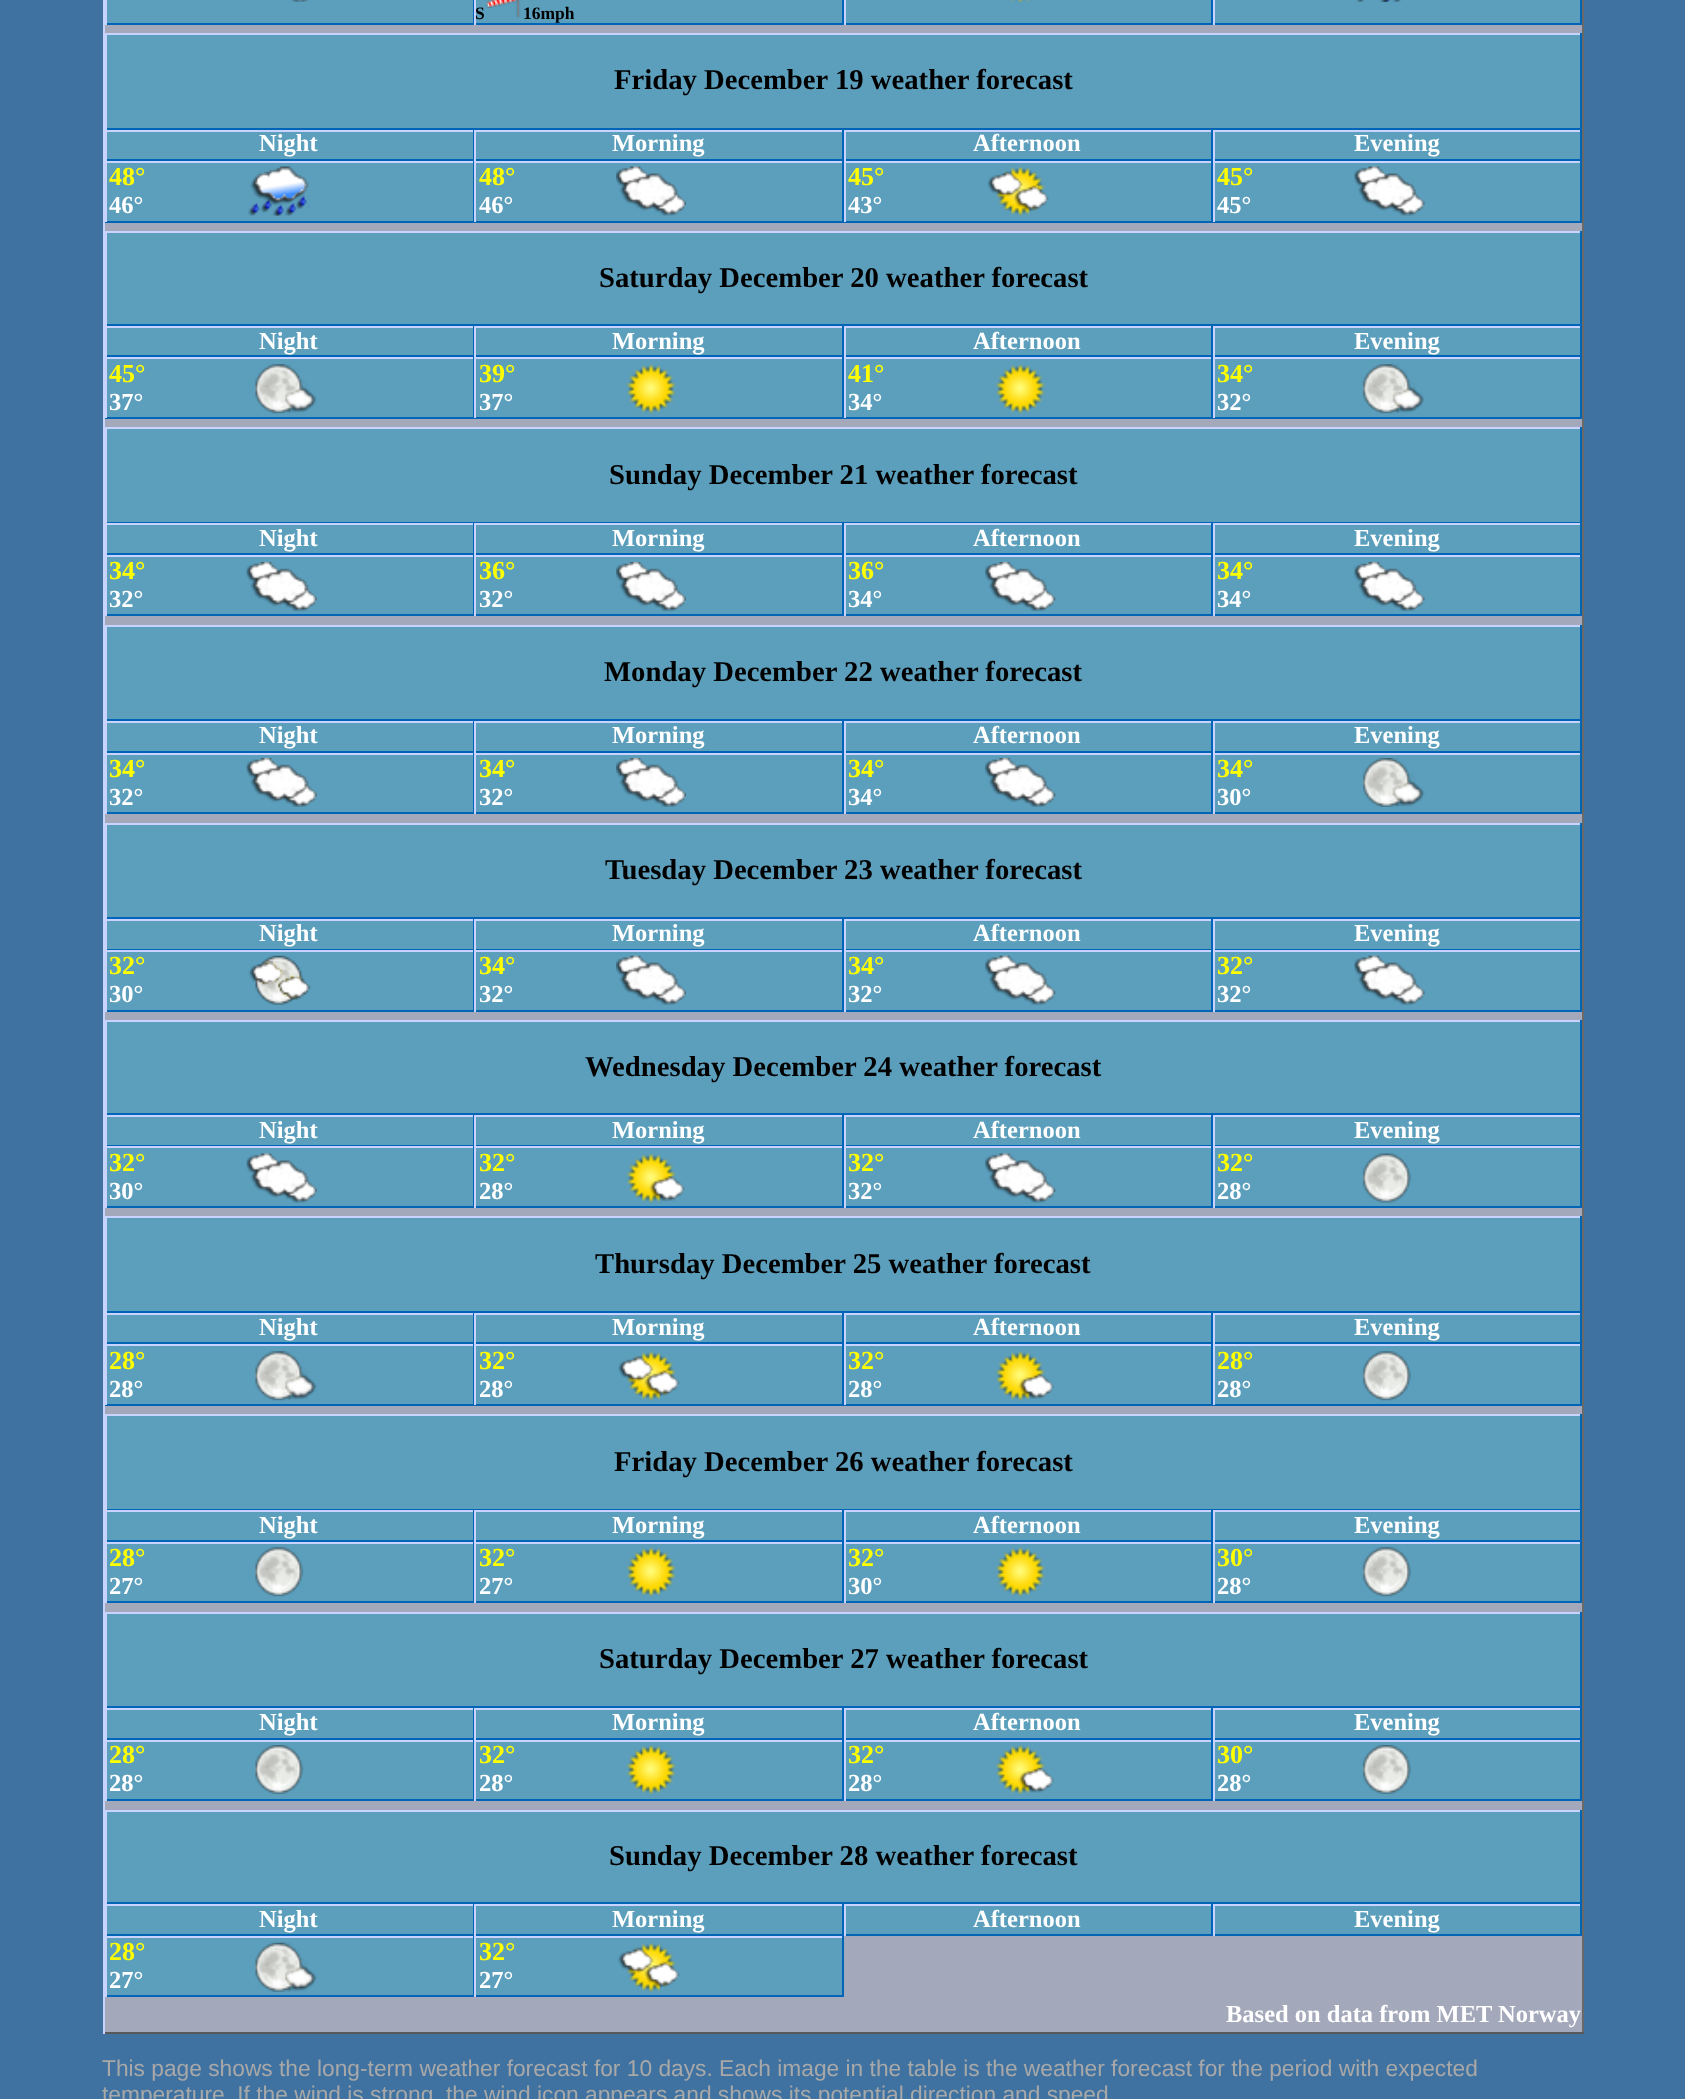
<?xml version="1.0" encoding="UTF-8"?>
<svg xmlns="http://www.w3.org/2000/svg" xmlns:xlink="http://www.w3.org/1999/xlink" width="1685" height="2099">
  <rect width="100%" height="100%" fill="#3f72a1" />
  <rect x="105" y="25" width="1477" height="2007" fill="#a3a8ba" />
  <rect x="1582" width="2" height="2034" fill="#696969" />
  <rect x="103" y="2032" width="1481" height="2" fill="#595959" />
  <rect x="103" width="2" height="2034" fill="#c8d3ff" />
  <rect x="107" width="366" height="23" fill="#5c9fbd" />
  <rect x="473" width="1" height="25" fill="#0065b6" />
  <rect x="105" y="23" width="369" height="2" fill="#0065b6" />
  <rect x="105" width="2" height="25" fill="#c8d3ff" />
  <image x="291" y="0" width="18" height="2" xlink:href="image1.png" />
  <rect x="476" width="366" height="23" fill="#5c9fbd" />
  <rect x="842" width="2" height="25" fill="#0065b6" />
  <rect x="474" y="23" width="370" height="2" fill="#0065b6" />
  <rect x="474" width="2" height="25" fill="#c8d3ff" />
  <image x="486" y="0" width="35" height="18" xlink:href="image2.png" />
  <rect x="846" width="365" height="23" fill="#5c9fbd" />
  <rect x="1211" width="2" height="25" fill="#0065b6" />
  <rect x="844" y="23" width="369" height="2" fill="#0065b6" />
  <rect x="844" width="2" height="25" fill="#c8d3ff" />
  <image x="1011" y="0" width="19" height="2" xlink:href="image3.png" />
  <rect x="1215" width="365" height="23" fill="#5c9fbd" />
  <rect x="1580" width="2" height="25" fill="#0065b6" />
  <rect x="1213" y="23" width="369" height="2" fill="#0065b6" />
  <rect x="1213" width="2" height="25" fill="#c8d3ff" />
  <image x="1356" y="0" width="45" height="2" xlink:href="image4.png" />
  <rect x="107" y="35" width="1473" height="93" fill="#5c9fbd" />
  <rect x="105" y="33" width="1477" height="2" fill="#c8d3ff" />
  <rect x="1580" y="33" width="2" height="97" fill="#0065b6" />
  <rect x="105" y="128" width="1477" height="2" fill="#0065b6" />
  <rect x="105" y="33" width="2" height="97" fill="#c8d3ff" />
  <rect x="107" y="132" width="366" height="27" fill="#5c9fbd" />
  <rect x="105" y="130" width="1477" height="2" fill="#c8d3ff" />
  <rect x="473" y="130" width="1" height="31" fill="#0065b6" />
  <rect x="105" y="159" width="369" height="2" fill="#0065b6" />
  <rect x="105" y="130" width="2" height="31" fill="#c8d3ff" />
  <rect x="476" y="132" width="366" height="27" fill="#5c9fbd" />
  <rect x="842" y="130" width="2" height="31" fill="#0065b6" />
  <rect x="474" y="159" width="370" height="2" fill="#0065b6" />
  <rect x="474" y="130" width="2" height="31" fill="#c8d3ff" />
  <rect x="846" y="132" width="365" height="27" fill="#5c9fbd" />
  <rect x="1211" y="130" width="2" height="31" fill="#0065b6" />
  <rect x="844" y="159" width="369" height="2" fill="#0065b6" />
  <rect x="844" y="130" width="2" height="31" fill="#c8d3ff" />
  <rect x="1215" y="132" width="365" height="27" fill="#5c9fbd" />
  <rect x="1580" y="130" width="2" height="31" fill="#0065b6" />
  <rect x="1213" y="159" width="369" height="2" fill="#0065b6" />
  <rect x="1213" y="130" width="2" height="31" fill="#c8d3ff" />
  <rect x="107" y="163" width="366" height="58" fill="#5c9fbd" />
  <rect x="105" y="161" width="1477" height="2" fill="#c8d3ff" />
  <rect x="473" y="161" width="1" height="61" fill="#0065b6" />
  <rect x="105" y="221" width="369" height="2" fill="#0065b6" />
  <rect x="105" y="161" width="2" height="61" fill="#c8d3ff" />
  <image x="248" y="166" width="62" height="50" xlink:href="image5.png" />
  <rect x="476" y="163" width="366" height="58" fill="#5c9fbd" />
  <rect x="842" y="161" width="2" height="61" fill="#0065b6" />
  <rect x="474" y="221" width="370" height="2" fill="#0065b6" />
  <rect x="474" y="161" width="2" height="61" fill="#c8d3ff" />
  <image x="616" y="166" width="70" height="50" xlink:href="image6.png" />
  <rect x="846" y="163" width="365" height="58" fill="#5c9fbd" />
  <rect x="1211" y="161" width="2" height="61" fill="#0065b6" />
  <rect x="844" y="221" width="369" height="2" fill="#0065b6" />
  <rect x="844" y="161" width="2" height="61" fill="#c8d3ff" />
  <image x="987" y="166" width="62" height="50" xlink:href="image7.png" />
  <rect x="1215" y="163" width="365" height="58" fill="#5c9fbd" />
  <rect x="1580" y="161" width="2" height="61" fill="#0065b6" />
  <rect x="1213" y="221" width="369" height="2" fill="#0065b6" />
  <rect x="1213" y="161" width="2" height="61" fill="#c8d3ff" />
  <image x="1354" y="166" width="71" height="50" xlink:href="image8.png" />
  <rect x="107" y="233" width="1473" height="91" fill="#5c9fbd" />
  <rect x="105" y="231" width="1477" height="2" fill="#c8d3ff" />
  <rect x="1580" y="231" width="2" height="95" fill="#0065b6" />
  <rect x="105" y="324" width="1477" height="2" fill="#0065b6" />
  <rect x="105" y="231" width="2" height="95" fill="#c8d3ff" />
  <rect x="107" y="328" width="366" height="27" fill="#5c9fbd" />
  <rect x="105" y="326" width="1477" height="2" fill="#c8d3ff" />
  <rect x="473" y="326" width="1" height="31" fill="#0065b6" />
  <rect x="105" y="355" width="369" height="2" fill="#0065b6" />
  <rect x="105" y="326" width="2" height="31" fill="#c8d3ff" />
  <rect x="476" y="328" width="366" height="27" fill="#5c9fbd" />
  <rect x="842" y="326" width="2" height="31" fill="#0065b6" />
  <rect x="474" y="355" width="370" height="2" fill="#0065b6" />
  <rect x="474" y="326" width="2" height="31" fill="#c8d3ff" />
  <rect x="846" y="328" width="365" height="27" fill="#5c9fbd" />
  <rect x="1211" y="326" width="2" height="31" fill="#0065b6" />
  <rect x="844" y="355" width="369" height="2" fill="#0065b6" />
  <rect x="844" y="326" width="2" height="31" fill="#c8d3ff" />
  <rect x="1215" y="328" width="365" height="27" fill="#5c9fbd" />
  <rect x="1580" y="326" width="2" height="31" fill="#0065b6" />
  <rect x="1213" y="355" width="369" height="2" fill="#0065b6" />
  <rect x="1213" y="326" width="2" height="31" fill="#c8d3ff" />
  <rect x="107" y="359" width="366" height="58" fill="#5c9fbd" />
  <rect x="105" y="357" width="1477" height="2" fill="#c8d3ff" />
  <rect x="473" y="357" width="1" height="61" fill="#0065b6" />
  <rect x="105" y="417" width="369" height="2" fill="#0065b6" />
  <rect x="105" y="357" width="2" height="61" fill="#c8d3ff" />
  <image x="255" y="364" width="62" height="50" xlink:href="image9.png" />
  <rect x="476" y="359" width="366" height="58" fill="#5c9fbd" />
  <rect x="842" y="357" width="2" height="61" fill="#0065b6" />
  <rect x="474" y="417" width="370" height="2" fill="#0065b6" />
  <rect x="474" y="357" width="2" height="61" fill="#c8d3ff" />
  <image x="626" y="364" width="50" height="50" xlink:href="image10.png" />
  <rect x="846" y="359" width="365" height="58" fill="#5c9fbd" />
  <rect x="1211" y="357" width="2" height="61" fill="#0065b6" />
  <rect x="844" y="417" width="369" height="2" fill="#0065b6" />
  <rect x="844" y="357" width="2" height="61" fill="#c8d3ff" />
  <image x="995" y="364" width="51" height="50" xlink:href="image11.png" />
  <rect x="1215" y="359" width="365" height="58" fill="#5c9fbd" />
  <rect x="1580" y="357" width="2" height="61" fill="#0065b6" />
  <rect x="1213" y="417" width="369" height="2" fill="#0065b6" />
  <rect x="1213" y="357" width="2" height="61" fill="#c8d3ff" />
  <image x="1362" y="364" width="63" height="50" xlink:href="image12.png" />
  <rect x="107" y="429" width="1473" height="93" fill="#5c9fbd" />
  <rect x="105" y="427" width="1477" height="2" fill="#c8d3ff" />
  <rect x="1580" y="427" width="2" height="96" fill="#0065b6" />
  <rect x="105" y="522" width="1477" height="1" fill="#0065b6" />
  <rect x="105" y="427" width="2" height="96" fill="#c8d3ff" />
  <rect x="107" y="525" width="366" height="28" fill="#5c9fbd" />
  <rect x="105" y="523" width="1477" height="2" fill="#c8d3ff" />
  <rect x="473" y="523" width="1" height="32" fill="#0065b6" />
  <rect x="105" y="553" width="369" height="2" fill="#0065b6" />
  <rect x="105" y="523" width="2" height="32" fill="#c8d3ff" />
  <rect x="476" y="525" width="366" height="28" fill="#5c9fbd" />
  <rect x="842" y="523" width="2" height="32" fill="#0065b6" />
  <rect x="474" y="553" width="370" height="2" fill="#0065b6" />
  <rect x="474" y="523" width="2" height="32" fill="#c8d3ff" />
  <rect x="846" y="525" width="365" height="28" fill="#5c9fbd" />
  <rect x="1211" y="523" width="2" height="32" fill="#0065b6" />
  <rect x="844" y="553" width="369" height="2" fill="#0065b6" />
  <rect x="844" y="523" width="2" height="32" fill="#c8d3ff" />
  <rect x="1215" y="525" width="365" height="28" fill="#5c9fbd" />
  <rect x="1580" y="523" width="2" height="32" fill="#0065b6" />
  <rect x="1213" y="553" width="369" height="2" fill="#0065b6" />
  <rect x="1213" y="523" width="2" height="32" fill="#c8d3ff" />
  <rect x="107" y="557" width="366" height="57" fill="#5c9fbd" />
  <rect x="105" y="555" width="1477" height="2" fill="#c8d3ff" />
  <rect x="473" y="555" width="1" height="61" fill="#0065b6" />
  <rect x="105" y="614" width="369" height="2" fill="#0065b6" />
  <rect x="105" y="555" width="2" height="61" fill="#c8d3ff" />
  <image x="246" y="562" width="71" height="49" xlink:href="image13.png" />
  <rect x="476" y="557" width="366" height="57" fill="#5c9fbd" />
  <rect x="842" y="555" width="2" height="61" fill="#0065b6" />
  <rect x="474" y="614" width="370" height="2" fill="#0065b6" />
  <rect x="474" y="555" width="2" height="61" fill="#c8d3ff" />
  <image x="616" y="562" width="70" height="49" xlink:href="image14.png" />
  <rect x="846" y="557" width="365" height="57" fill="#5c9fbd" />
  <rect x="1211" y="555" width="2" height="61" fill="#0065b6" />
  <rect x="844" y="614" width="369" height="2" fill="#0065b6" />
  <rect x="844" y="555" width="2" height="61" fill="#c8d3ff" />
  <image x="985" y="562" width="71" height="49" xlink:href="image15.png" />
  <rect x="1215" y="557" width="365" height="57" fill="#5c9fbd" />
  <rect x="1580" y="555" width="2" height="61" fill="#0065b6" />
  <rect x="1213" y="614" width="369" height="2" fill="#0065b6" />
  <rect x="1213" y="555" width="2" height="61" fill="#c8d3ff" />
  <image x="1354" y="562" width="71" height="49" xlink:href="image16.png" />
  <rect x="107" y="627" width="1473" height="92" fill="#5c9fbd" />
  <rect x="105" y="625" width="1477" height="2" fill="#c8d3ff" />
  <rect x="1580" y="625" width="2" height="96" fill="#0065b6" />
  <rect x="105" y="719" width="1477" height="2" fill="#0065b6" />
  <rect x="105" y="625" width="2" height="96" fill="#c8d3ff" />
  <rect x="107" y="723" width="366" height="28" fill="#5c9fbd" />
  <rect x="105" y="721" width="1477" height="2" fill="#c8d3ff" />
  <rect x="473" y="721" width="1" height="32" fill="#0065b6" />
  <rect x="105" y="751" width="369" height="2" fill="#0065b6" />
  <rect x="105" y="721" width="2" height="32" fill="#c8d3ff" />
  <rect x="476" y="723" width="366" height="28" fill="#5c9fbd" />
  <rect x="842" y="721" width="2" height="32" fill="#0065b6" />
  <rect x="474" y="751" width="370" height="2" fill="#0065b6" />
  <rect x="474" y="721" width="2" height="32" fill="#c8d3ff" />
  <rect x="846" y="723" width="365" height="28" fill="#5c9fbd" />
  <rect x="1211" y="721" width="2" height="32" fill="#0065b6" />
  <rect x="844" y="751" width="369" height="2" fill="#0065b6" />
  <rect x="844" y="721" width="2" height="32" fill="#c8d3ff" />
  <rect x="1215" y="723" width="365" height="28" fill="#5c9fbd" />
  <rect x="1580" y="721" width="2" height="32" fill="#0065b6" />
  <rect x="1213" y="751" width="369" height="2" fill="#0065b6" />
  <rect x="1213" y="721" width="2" height="32" fill="#c8d3ff" />
  <rect x="107" y="755" width="366" height="57" fill="#5c9fbd" />
  <rect x="105" y="753" width="1477" height="2" fill="#c8d3ff" />
  <rect x="473" y="753" width="1" height="61" fill="#0065b6" />
  <rect x="105" y="812" width="369" height="2" fill="#0065b6" />
  <rect x="105" y="753" width="2" height="61" fill="#c8d3ff" />
  <image x="246" y="758" width="71" height="49" xlink:href="image13.png" />
  <rect x="476" y="755" width="366" height="57" fill="#5c9fbd" />
  <rect x="842" y="753" width="2" height="61" fill="#0065b6" />
  <rect x="474" y="812" width="370" height="2" fill="#0065b6" />
  <rect x="474" y="753" width="2" height="61" fill="#c8d3ff" />
  <image x="616" y="758" width="70" height="49" xlink:href="image14.png" />
  <rect x="846" y="755" width="365" height="57" fill="#5c9fbd" />
  <rect x="1211" y="753" width="2" height="61" fill="#0065b6" />
  <rect x="844" y="812" width="369" height="2" fill="#0065b6" />
  <rect x="844" y="753" width="2" height="61" fill="#c8d3ff" />
  <image x="985" y="758" width="71" height="49" xlink:href="image15.png" />
  <rect x="1215" y="755" width="365" height="57" fill="#5c9fbd" />
  <rect x="1580" y="753" width="2" height="61" fill="#0065b6" />
  <rect x="1213" y="812" width="369" height="2" fill="#0065b6" />
  <rect x="1213" y="753" width="2" height="61" fill="#c8d3ff" />
  <image x="1362" y="758" width="63" height="49" xlink:href="image17.png" />
  <rect x="107" y="825" width="1473" height="92" fill="#5c9fbd" />
  <rect x="105" y="823" width="1477" height="2" fill="#c8d3ff" />
  <rect x="1580" y="823" width="2" height="96" fill="#0065b6" />
  <rect x="105" y="917" width="1477" height="2" fill="#0065b6" />
  <rect x="105" y="823" width="2" height="96" fill="#c8d3ff" />
  <rect x="107" y="921" width="366" height="28" fill="#5c9fbd" />
  <rect x="105" y="919" width="1477" height="2" fill="#c8d3ff" />
  <rect x="473" y="919" width="1" height="31" fill="#0065b6" />
  <rect x="105" y="949" width="369" height="1" fill="#0065b6" />
  <rect x="105" y="919" width="2" height="31" fill="#c8d3ff" />
  <rect x="476" y="921" width="366" height="28" fill="#5c9fbd" />
  <rect x="842" y="919" width="2" height="31" fill="#0065b6" />
  <rect x="474" y="949" width="370" height="1" fill="#0065b6" />
  <rect x="474" y="919" width="2" height="31" fill="#c8d3ff" />
  <rect x="846" y="921" width="365" height="28" fill="#5c9fbd" />
  <rect x="1211" y="919" width="2" height="31" fill="#0065b6" />
  <rect x="844" y="949" width="369" height="1" fill="#0065b6" />
  <rect x="844" y="919" width="2" height="31" fill="#c8d3ff" />
  <rect x="1215" y="921" width="365" height="28" fill="#5c9fbd" />
  <rect x="1580" y="919" width="2" height="31" fill="#0065b6" />
  <rect x="1213" y="949" width="369" height="1" fill="#0065b6" />
  <rect x="1213" y="919" width="2" height="31" fill="#c8d3ff" />
  <rect x="107" y="952" width="366" height="58" fill="#5c9fbd" />
  <rect x="105" y="950" width="1477" height="2" fill="#c8d3ff" />
  <rect x="473" y="950" width="1" height="62" fill="#0065b6" />
  <rect x="105" y="1010" width="369" height="2" fill="#0065b6" />
  <rect x="105" y="950" width="2" height="62" fill="#c8d3ff" />
  <image x="248" y="955" width="63" height="50" xlink:href="image18.png" />
  <rect x="476" y="952" width="366" height="58" fill="#5c9fbd" />
  <rect x="842" y="950" width="2" height="62" fill="#0065b6" />
  <rect x="474" y="1010" width="370" height="2" fill="#0065b6" />
  <rect x="474" y="950" width="2" height="62" fill="#c8d3ff" />
  <image x="616" y="955" width="70" height="50" xlink:href="image19.png" />
  <rect x="846" y="952" width="365" height="58" fill="#5c9fbd" />
  <rect x="1211" y="950" width="2" height="62" fill="#0065b6" />
  <rect x="844" y="1010" width="369" height="2" fill="#0065b6" />
  <rect x="844" y="950" width="2" height="62" fill="#c8d3ff" />
  <image x="985" y="955" width="71" height="50" xlink:href="image20.png" />
  <rect x="1215" y="952" width="365" height="58" fill="#5c9fbd" />
  <rect x="1580" y="950" width="2" height="62" fill="#0065b6" />
  <rect x="1213" y="1010" width="369" height="2" fill="#0065b6" />
  <rect x="1213" y="950" width="2" height="62" fill="#c8d3ff" />
  <image x="1354" y="955" width="71" height="50" xlink:href="image21.png" />
  <rect x="107" y="1022" width="1473" height="91" fill="#5c9fbd" />
  <rect x="105" y="1020" width="1477" height="2" fill="#c8d3ff" />
  <rect x="1580" y="1020" width="2" height="95" fill="#0065b6" />
  <rect x="105" y="1113" width="1477" height="2" fill="#0065b6" />
  <rect x="105" y="1020" width="2" height="95" fill="#c8d3ff" />
  <rect x="107" y="1117" width="366" height="28" fill="#5c9fbd" />
  <rect x="105" y="1115" width="1477" height="2" fill="#c8d3ff" />
  <rect x="473" y="1115" width="1" height="31" fill="#0065b6" />
  <rect x="105" y="1145" width="369" height="1" fill="#0065b6" />
  <rect x="105" y="1115" width="2" height="31" fill="#c8d3ff" />
  <rect x="476" y="1117" width="366" height="28" fill="#5c9fbd" />
  <rect x="842" y="1115" width="2" height="31" fill="#0065b6" />
  <rect x="474" y="1145" width="370" height="1" fill="#0065b6" />
  <rect x="474" y="1115" width="2" height="31" fill="#c8d3ff" />
  <rect x="846" y="1117" width="365" height="28" fill="#5c9fbd" />
  <rect x="1211" y="1115" width="2" height="31" fill="#0065b6" />
  <rect x="844" y="1145" width="369" height="1" fill="#0065b6" />
  <rect x="844" y="1115" width="2" height="31" fill="#c8d3ff" />
  <rect x="1215" y="1117" width="365" height="28" fill="#5c9fbd" />
  <rect x="1580" y="1115" width="2" height="31" fill="#0065b6" />
  <rect x="1213" y="1145" width="369" height="1" fill="#0065b6" />
  <rect x="1213" y="1115" width="2" height="31" fill="#c8d3ff" />
  <rect x="107" y="1148" width="366" height="58" fill="#5c9fbd" />
  <rect x="105" y="1146" width="1477" height="2" fill="#c8d3ff" />
  <rect x="473" y="1146" width="1" height="62" fill="#0065b6" />
  <rect x="105" y="1206" width="369" height="2" fill="#0065b6" />
  <rect x="105" y="1146" width="2" height="62" fill="#c8d3ff" />
  <image x="246" y="1153" width="71" height="50" xlink:href="image22.png" />
  <rect x="476" y="1148" width="366" height="58" fill="#5c9fbd" />
  <rect x="842" y="1146" width="2" height="62" fill="#0065b6" />
  <rect x="474" y="1206" width="370" height="2" fill="#0065b6" />
  <rect x="474" y="1146" width="2" height="62" fill="#c8d3ff" />
  <image x="626" y="1153" width="59" height="50" xlink:href="image23.png" />
  <rect x="846" y="1148" width="365" height="58" fill="#5c9fbd" />
  <rect x="1211" y="1146" width="2" height="62" fill="#0065b6" />
  <rect x="844" y="1206" width="369" height="2" fill="#0065b6" />
  <rect x="844" y="1146" width="2" height="62" fill="#c8d3ff" />
  <image x="985" y="1153" width="71" height="50" xlink:href="image24.png" />
  <rect x="1215" y="1148" width="365" height="58" fill="#5c9fbd" />
  <rect x="1580" y="1146" width="2" height="62" fill="#0065b6" />
  <rect x="1213" y="1206" width="369" height="2" fill="#0065b6" />
  <rect x="1213" y="1146" width="2" height="62" fill="#c8d3ff" />
  <image x="1362" y="1153" width="49" height="50" xlink:href="image25.png" />
  <rect x="107" y="1218" width="1473" height="93" fill="#5c9fbd" />
  <rect x="105" y="1216" width="1477" height="2" fill="#c8d3ff" />
  <rect x="1580" y="1216" width="2" height="97" fill="#0065b6" />
  <rect x="105" y="1311" width="1477" height="2" fill="#0065b6" />
  <rect x="105" y="1216" width="2" height="97" fill="#c8d3ff" />
  <rect x="107" y="1315" width="366" height="27" fill="#5c9fbd" />
  <rect x="105" y="1313" width="1477" height="2" fill="#c8d3ff" />
  <rect x="473" y="1313" width="1" height="31" fill="#0065b6" />
  <rect x="105" y="1342" width="369" height="2" fill="#0065b6" />
  <rect x="105" y="1313" width="2" height="31" fill="#c8d3ff" />
  <rect x="476" y="1315" width="366" height="27" fill="#5c9fbd" />
  <rect x="842" y="1313" width="2" height="31" fill="#0065b6" />
  <rect x="474" y="1342" width="370" height="2" fill="#0065b6" />
  <rect x="474" y="1313" width="2" height="31" fill="#c8d3ff" />
  <rect x="846" y="1315" width="365" height="27" fill="#5c9fbd" />
  <rect x="1211" y="1313" width="2" height="31" fill="#0065b6" />
  <rect x="844" y="1342" width="369" height="2" fill="#0065b6" />
  <rect x="844" y="1313" width="2" height="31" fill="#c8d3ff" />
  <rect x="1215" y="1315" width="365" height="27" fill="#5c9fbd" />
  <rect x="1580" y="1313" width="2" height="31" fill="#0065b6" />
  <rect x="1213" y="1342" width="369" height="2" fill="#0065b6" />
  <rect x="1213" y="1313" width="2" height="31" fill="#c8d3ff" />
  <rect x="107" y="1346" width="366" height="58" fill="#5c9fbd" />
  <rect x="105" y="1344" width="1477" height="2" fill="#c8d3ff" />
  <rect x="473" y="1344" width="1" height="61" fill="#0065b6" />
  <rect x="105" y="1404" width="369" height="2" fill="#0065b6" />
  <rect x="105" y="1344" width="2" height="61" fill="#c8d3ff" />
  <image x="255" y="1351" width="62" height="50" xlink:href="image26.png" />
  <rect x="476" y="1346" width="366" height="58" fill="#5c9fbd" />
  <rect x="842" y="1344" width="2" height="61" fill="#0065b6" />
  <rect x="474" y="1404" width="370" height="2" fill="#0065b6" />
  <rect x="474" y="1344" width="2" height="61" fill="#c8d3ff" />
  <image x="618" y="1351" width="62" height="50" xlink:href="image27.png" />
  <rect x="846" y="1346" width="365" height="58" fill="#5c9fbd" />
  <rect x="1211" y="1344" width="2" height="61" fill="#0065b6" />
  <rect x="844" y="1404" width="369" height="2" fill="#0065b6" />
  <rect x="844" y="1344" width="2" height="61" fill="#c8d3ff" />
  <image x="995" y="1351" width="59" height="50" xlink:href="image28.png" />
  <rect x="1215" y="1346" width="365" height="58" fill="#5c9fbd" />
  <rect x="1580" y="1344" width="2" height="61" fill="#0065b6" />
  <rect x="1213" y="1404" width="369" height="2" fill="#0065b6" />
  <rect x="1213" y="1344" width="2" height="61" fill="#c8d3ff" />
  <image x="1362" y="1351" width="49" height="50" xlink:href="image29.png" />
  <rect x="107" y="1416" width="1473" height="93" fill="#5c9fbd" />
  <rect x="105" y="1414" width="1477" height="2" fill="#c8d3ff" />
  <rect x="1580" y="1414" width="2" height="96" fill="#0065b6" />
  <rect x="105" y="1509" width="1477" height="1" fill="#0065b6" />
  <rect x="105" y="1414" width="2" height="96" fill="#c8d3ff" />
  <rect x="107" y="1512" width="366" height="28" fill="#5c9fbd" />
  <rect x="105" y="1510" width="1477" height="2" fill="#c8d3ff" />
  <rect x="473" y="1510" width="1" height="32" fill="#0065b6" />
  <rect x="105" y="1540" width="369" height="2" fill="#0065b6" />
  <rect x="105" y="1510" width="2" height="32" fill="#c8d3ff" />
  <rect x="476" y="1512" width="366" height="28" fill="#5c9fbd" />
  <rect x="842" y="1510" width="2" height="32" fill="#0065b6" />
  <rect x="474" y="1540" width="370" height="2" fill="#0065b6" />
  <rect x="474" y="1510" width="2" height="32" fill="#c8d3ff" />
  <rect x="846" y="1512" width="365" height="28" fill="#5c9fbd" />
  <rect x="1211" y="1510" width="2" height="32" fill="#0065b6" />
  <rect x="844" y="1540" width="369" height="2" fill="#0065b6" />
  <rect x="844" y="1510" width="2" height="32" fill="#c8d3ff" />
  <rect x="1215" y="1512" width="365" height="28" fill="#5c9fbd" />
  <rect x="1580" y="1510" width="2" height="32" fill="#0065b6" />
  <rect x="1213" y="1540" width="369" height="2" fill="#0065b6" />
  <rect x="1213" y="1510" width="2" height="32" fill="#c8d3ff" />
  <rect x="107" y="1544" width="366" height="57" fill="#5c9fbd" />
  <rect x="105" y="1542" width="1477" height="2" fill="#c8d3ff" />
  <rect x="473" y="1542" width="1" height="61" fill="#0065b6" />
  <rect x="105" y="1601" width="369" height="2" fill="#0065b6" />
  <rect x="105" y="1542" width="2" height="61" fill="#c8d3ff" />
  <image x="255" y="1547" width="49" height="50" xlink:href="image30.png" />
  <rect x="476" y="1544" width="366" height="57" fill="#5c9fbd" />
  <rect x="842" y="1542" width="2" height="61" fill="#0065b6" />
  <rect x="474" y="1601" width="370" height="2" fill="#0065b6" />
  <rect x="474" y="1542" width="2" height="61" fill="#c8d3ff" />
  <image x="626" y="1547" width="50" height="50" xlink:href="image10.png" />
  <rect x="846" y="1544" width="365" height="57" fill="#5c9fbd" />
  <rect x="1211" y="1542" width="2" height="61" fill="#0065b6" />
  <rect x="844" y="1601" width="369" height="2" fill="#0065b6" />
  <rect x="844" y="1542" width="2" height="61" fill="#c8d3ff" />
  <image x="995" y="1547" width="51" height="50" xlink:href="image11.png" />
  <rect x="1215" y="1544" width="365" height="57" fill="#5c9fbd" />
  <rect x="1580" y="1542" width="2" height="61" fill="#0065b6" />
  <rect x="1213" y="1601" width="369" height="2" fill="#0065b6" />
  <rect x="1213" y="1542" width="2" height="61" fill="#c8d3ff" />
  <image x="1362" y="1547" width="49" height="50" xlink:href="image31.png" />
  <rect x="107" y="1614" width="1473" height="92" fill="#5c9fbd" />
  <rect x="105" y="1612" width="1477" height="2" fill="#c8d3ff" />
  <rect x="1580" y="1612" width="2" height="96" fill="#0065b6" />
  <rect x="105" y="1706" width="1477" height="2" fill="#0065b6" />
  <rect x="105" y="1612" width="2" height="96" fill="#c8d3ff" />
  <rect x="107" y="1710" width="366" height="28" fill="#5c9fbd" />
  <rect x="105" y="1708" width="1477" height="2" fill="#c8d3ff" />
  <rect x="473" y="1708" width="1" height="32" fill="#0065b6" />
  <rect x="105" y="1738" width="369" height="2" fill="#0065b6" />
  <rect x="105" y="1708" width="2" height="32" fill="#c8d3ff" />
  <rect x="476" y="1710" width="366" height="28" fill="#5c9fbd" />
  <rect x="842" y="1708" width="2" height="32" fill="#0065b6" />
  <rect x="474" y="1738" width="370" height="2" fill="#0065b6" />
  <rect x="474" y="1708" width="2" height="32" fill="#c8d3ff" />
  <rect x="846" y="1710" width="365" height="28" fill="#5c9fbd" />
  <rect x="1211" y="1708" width="2" height="32" fill="#0065b6" />
  <rect x="844" y="1738" width="369" height="2" fill="#0065b6" />
  <rect x="844" y="1708" width="2" height="32" fill="#c8d3ff" />
  <rect x="1215" y="1710" width="365" height="28" fill="#5c9fbd" />
  <rect x="1580" y="1708" width="2" height="32" fill="#0065b6" />
  <rect x="1213" y="1738" width="369" height="2" fill="#0065b6" />
  <rect x="1213" y="1708" width="2" height="32" fill="#c8d3ff" />
  <rect x="107" y="1742" width="366" height="57" fill="#5c9fbd" />
  <rect x="105" y="1740" width="1477" height="2" fill="#c8d3ff" />
  <rect x="473" y="1740" width="1" height="61" fill="#0065b6" />
  <rect x="105" y="1799" width="369" height="2" fill="#0065b6" />
  <rect x="105" y="1740" width="2" height="61" fill="#c8d3ff" />
  <image x="255" y="1745" width="49" height="49" xlink:href="image32.png" />
  <rect x="476" y="1742" width="366" height="57" fill="#5c9fbd" />
  <rect x="842" y="1740" width="2" height="61" fill="#0065b6" />
  <rect x="474" y="1799" width="370" height="2" fill="#0065b6" />
  <rect x="474" y="1740" width="2" height="61" fill="#c8d3ff" />
  <image x="626" y="1745" width="50" height="49" xlink:href="image33.png" />
  <rect x="846" y="1742" width="365" height="57" fill="#5c9fbd" />
  <rect x="1211" y="1740" width="2" height="61" fill="#0065b6" />
  <rect x="844" y="1799" width="369" height="2" fill="#0065b6" />
  <rect x="844" y="1740" width="2" height="61" fill="#c8d3ff" />
  <image x="995" y="1745" width="59" height="49" xlink:href="image34.png" />
  <rect x="1215" y="1742" width="365" height="57" fill="#5c9fbd" />
  <rect x="1580" y="1740" width="2" height="61" fill="#0065b6" />
  <rect x="1213" y="1799" width="369" height="2" fill="#0065b6" />
  <rect x="1213" y="1740" width="2" height="61" fill="#c8d3ff" />
  <image x="1362" y="1745" width="49" height="49" xlink:href="image35.png" />
  <rect x="107" y="1812" width="1473" height="90" fill="#5c9fbd" />
  <rect x="105" y="1810" width="1477" height="2" fill="#c8d3ff" />
  <rect x="1580" y="1810" width="2" height="94" fill="#0065b6" />
  <rect x="105" y="1902" width="1477" height="2" fill="#0065b6" />
  <rect x="105" y="1810" width="2" height="94" fill="#c8d3ff" />
  <rect x="107" y="1906" width="366" height="28" fill="#5c9fbd" />
  <rect x="105" y="1904" width="1477" height="2" fill="#c8d3ff" />
  <rect x="473" y="1904" width="1" height="32" fill="#0065b6" />
  <rect x="105" y="1934" width="369" height="2" fill="#0065b6" />
  <rect x="105" y="1904" width="2" height="32" fill="#c8d3ff" />
  <rect x="476" y="1906" width="366" height="28" fill="#5c9fbd" />
  <rect x="842" y="1904" width="2" height="32" fill="#0065b6" />
  <rect x="474" y="1934" width="370" height="2" fill="#0065b6" />
  <rect x="474" y="1904" width="2" height="32" fill="#c8d3ff" />
  <rect x="846" y="1906" width="365" height="28" fill="#5c9fbd" />
  <rect x="1211" y="1904" width="2" height="32" fill="#0065b6" />
  <rect x="844" y="1934" width="369" height="2" fill="#0065b6" />
  <rect x="844" y="1904" width="2" height="32" fill="#c8d3ff" />
  <rect x="1215" y="1906" width="365" height="28" fill="#5c9fbd" />
  <rect x="1580" y="1904" width="2" height="32" fill="#0065b6" />
  <rect x="1213" y="1934" width="369" height="2" fill="#0065b6" />
  <rect x="1213" y="1904" width="2" height="32" fill="#c8d3ff" />
  <rect x="107" y="1938" width="366" height="57" fill="#5c9fbd" />
  <rect x="105" y="1936" width="739" height="2" fill="#c8d3ff" />
  <rect x="473" y="1936" width="1" height="61" fill="#0065b6" />
  <rect x="105" y="1995" width="369" height="2" fill="#0065b6" />
  <rect x="105" y="1936" width="2" height="61" fill="#c8d3ff" />
  <image x="255" y="1942" width="62" height="50" xlink:href="image36.png" />
  <rect x="476" y="1938" width="366" height="57" fill="#5c9fbd" />
  <rect x="842" y="1936" width="2" height="61" fill="#0065b6" />
  <rect x="474" y="1995" width="370" height="2" fill="#0065b6" />
  <rect x="474" y="1936" width="2" height="61" fill="#c8d3ff" />
  <image x="617" y="1942" width="63" height="50" xlink:href="image37.png" />
  <text x="475" y="19" style="font-family: Liberation Serif; font-size: 17.5px; font-weight: bold; fill: #000000">S</text>
  <text x="523" y="19" style="font-family: Liberation Serif; font-size: 17.5px; font-weight: bold; fill: #000000">16mph</text>
  <text x="614" y="89" style="font-family: Liberation Serif; font-size: 28.7px; font-weight: bold; fill: #000000">Friday December 19 weather forecast</text>
  <text x="259" y="151" style="font-family: Liberation Serif; font-size: 24.5px; font-weight: bold; fill: #ffffff">Night</text>
  <text x="612" y="151" style="font-family: Liberation Serif; font-size: 24.5px; font-weight: bold; fill: #ffffff">Morning</text>
  <text x="973" y="151" style="font-family: Liberation Serif; font-size: 24.5px; font-weight: bold; fill: #ffffff">Afternoon</text>
  <text x="1354" y="151" style="font-family: Liberation Serif; font-size: 24.5px; font-weight: bold; fill: #ffffff">Evening</text>
  <text x="109" y="185" style="font-family: Liberation Serif; font-size: 26px; font-weight: bold; fill: #ffff00">48°</text>
  <text x="109" y="213" style="font-family: Liberation Serif; font-size: 24.5px; font-weight: bold; fill: #ffffff">46°</text>
  <text x="479" y="185" style="font-family: Liberation Serif; font-size: 26px; font-weight: bold; fill: #ffff00">48°</text>
  <text x="479" y="213" style="font-family: Liberation Serif; font-size: 24.5px; font-weight: bold; fill: #ffffff">46°</text>
  <text x="848" y="185" style="font-family: Liberation Serif; font-size: 26px; font-weight: bold; fill: #ffff00">45°</text>
  <text x="848" y="213" style="font-family: Liberation Serif; font-size: 24.5px; font-weight: bold; fill: #ffffff">43°</text>
  <text x="1217" y="185" style="font-family: Liberation Serif; font-size: 26px; font-weight: bold; fill: #ffff00">45°</text>
  <text x="1217" y="213" style="font-family: Liberation Serif; font-size: 24.5px; font-weight: bold; fill: #ffffff">45°</text>
  <text x="599" y="287" style="font-family: Liberation Serif; font-size: 28.7px; font-weight: bold; fill: #000000">Saturday December 20 weather forecast</text>
  <text x="259" y="349" style="font-family: Liberation Serif; font-size: 24.5px; font-weight: bold; fill: #ffffff">Night</text>
  <text x="612" y="349" style="font-family: Liberation Serif; font-size: 24.5px; font-weight: bold; fill: #ffffff">Morning</text>
  <text x="973" y="349" style="font-family: Liberation Serif; font-size: 24.5px; font-weight: bold; fill: #ffffff">Afternoon</text>
  <text x="1354" y="349" style="font-family: Liberation Serif; font-size: 24.5px; font-weight: bold; fill: #ffffff">Evening</text>
  <text x="109" y="382" style="font-family: Liberation Serif; font-size: 26px; font-weight: bold; fill: #ffff00">45°</text>
  <text x="109" y="410" style="font-family: Liberation Serif; font-size: 24.5px; font-weight: bold; fill: #ffffff">37°</text>
  <text x="479" y="382" style="font-family: Liberation Serif; font-size: 26px; font-weight: bold; fill: #ffff00">39°</text>
  <text x="479" y="410" style="font-family: Liberation Serif; font-size: 24.5px; font-weight: bold; fill: #ffffff">37°</text>
  <text x="848" y="382" style="font-family: Liberation Serif; font-size: 26px; font-weight: bold; fill: #ffff00">41°</text>
  <text x="848" y="410" style="font-family: Liberation Serif; font-size: 24.5px; font-weight: bold; fill: #ffffff">34°</text>
  <text x="1217" y="382" style="font-family: Liberation Serif; font-size: 26px; font-weight: bold; fill: #ffff00">34°</text>
  <text x="1217" y="410" style="font-family: Liberation Serif; font-size: 24.5px; font-weight: bold; fill: #ffffff">32°</text>
  <text x="609" y="484" style="font-family: Liberation Serif; font-size: 28.7px; font-weight: bold; fill: #000000">Sunday December 21 weather forecast</text>
  <text x="259" y="546" style="font-family: Liberation Serif; font-size: 24.5px; font-weight: bold; fill: #ffffff">Night</text>
  <text x="612" y="546" style="font-family: Liberation Serif; font-size: 24.5px; font-weight: bold; fill: #ffffff">Morning</text>
  <text x="973" y="546" style="font-family: Liberation Serif; font-size: 24.5px; font-weight: bold; fill: #ffffff">Afternoon</text>
  <text x="1354" y="546" style="font-family: Liberation Serif; font-size: 24.5px; font-weight: bold; fill: #ffffff">Evening</text>
  <text x="109" y="579" style="font-family: Liberation Serif; font-size: 26px; font-weight: bold; fill: #ffff00">34°</text>
  <text x="109" y="607" style="font-family: Liberation Serif; font-size: 24.5px; font-weight: bold; fill: #ffffff">32°</text>
  <text x="479" y="579" style="font-family: Liberation Serif; font-size: 26px; font-weight: bold; fill: #ffff00">36°</text>
  <text x="479" y="607" style="font-family: Liberation Serif; font-size: 24.5px; font-weight: bold; fill: #ffffff">32°</text>
  <text x="848" y="579" style="font-family: Liberation Serif; font-size: 26px; font-weight: bold; fill: #ffff00">36°</text>
  <text x="848" y="607" style="font-family: Liberation Serif; font-size: 24.5px; font-weight: bold; fill: #ffffff">34°</text>
  <text x="1217" y="579" style="font-family: Liberation Serif; font-size: 26px; font-weight: bold; fill: #ffff00">34°</text>
  <text x="1217" y="607" style="font-family: Liberation Serif; font-size: 24.5px; font-weight: bold; fill: #ffffff">34°</text>
  <text x="604" y="681" style="font-family: Liberation Serif; font-size: 28.7px; font-weight: bold; fill: #000000">Monday December 22 weather forecast</text>
  <text x="259" y="743" style="font-family: Liberation Serif; font-size: 24.5px; font-weight: bold; fill: #ffffff">Night</text>
  <text x="612" y="743" style="font-family: Liberation Serif; font-size: 24.5px; font-weight: bold; fill: #ffffff">Morning</text>
  <text x="973" y="743" style="font-family: Liberation Serif; font-size: 24.5px; font-weight: bold; fill: #ffffff">Afternoon</text>
  <text x="1354" y="743" style="font-family: Liberation Serif; font-size: 24.5px; font-weight: bold; fill: #ffffff">Evening</text>
  <text x="109" y="777" style="font-family: Liberation Serif; font-size: 26px; font-weight: bold; fill: #ffff00">34°</text>
  <text x="109" y="805" style="font-family: Liberation Serif; font-size: 24.5px; font-weight: bold; fill: #ffffff">32°</text>
  <text x="479" y="777" style="font-family: Liberation Serif; font-size: 26px; font-weight: bold; fill: #ffff00">34°</text>
  <text x="479" y="805" style="font-family: Liberation Serif; font-size: 24.5px; font-weight: bold; fill: #ffffff">32°</text>
  <text x="848" y="777" style="font-family: Liberation Serif; font-size: 26px; font-weight: bold; fill: #ffff00">34°</text>
  <text x="848" y="805" style="font-family: Liberation Serif; font-size: 24.5px; font-weight: bold; fill: #ffffff">34°</text>
  <text x="1217" y="777" style="font-family: Liberation Serif; font-size: 26px; font-weight: bold; fill: #ffff00">34°</text>
  <text x="1217" y="805" style="font-family: Liberation Serif; font-size: 24.5px; font-weight: bold; fill: #ffffff">30°</text>
  <text x="605" y="879" style="font-family: Liberation Serif; font-size: 28.7px; font-weight: bold; fill: #000000">Tuesday December 23 weather forecast</text>
  <text x="259" y="941" style="font-family: Liberation Serif; font-size: 24.5px; font-weight: bold; fill: #ffffff">Night</text>
  <text x="612" y="941" style="font-family: Liberation Serif; font-size: 24.5px; font-weight: bold; fill: #ffffff">Morning</text>
  <text x="973" y="941" style="font-family: Liberation Serif; font-size: 24.5px; font-weight: bold; fill: #ffffff">Afternoon</text>
  <text x="1354" y="941" style="font-family: Liberation Serif; font-size: 24.5px; font-weight: bold; fill: #ffffff">Evening</text>
  <text x="109" y="974" style="font-family: Liberation Serif; font-size: 26px; font-weight: bold; fill: #ffff00">32°</text>
  <text x="109" y="1002" style="font-family: Liberation Serif; font-size: 24.5px; font-weight: bold; fill: #ffffff">30°</text>
  <text x="479" y="974" style="font-family: Liberation Serif; font-size: 26px; font-weight: bold; fill: #ffff00">34°</text>
  <text x="479" y="1002" style="font-family: Liberation Serif; font-size: 24.5px; font-weight: bold; fill: #ffffff">32°</text>
  <text x="848" y="974" style="font-family: Liberation Serif; font-size: 26px; font-weight: bold; fill: #ffff00">34°</text>
  <text x="848" y="1002" style="font-family: Liberation Serif; font-size: 24.5px; font-weight: bold; fill: #ffffff">32°</text>
  <text x="1217" y="974" style="font-family: Liberation Serif; font-size: 26px; font-weight: bold; fill: #ffff00">32°</text>
  <text x="1217" y="1002" style="font-family: Liberation Serif; font-size: 24.5px; font-weight: bold; fill: #ffffff">32°</text>
  <text x="585" y="1076" style="font-family: Liberation Serif; font-size: 28.7px; font-weight: bold; fill: #000000">Wednesday December 24 weather forecast</text>
  <text x="259" y="1138" style="font-family: Liberation Serif; font-size: 24.5px; font-weight: bold; fill: #ffffff">Night</text>
  <text x="612" y="1138" style="font-family: Liberation Serif; font-size: 24.5px; font-weight: bold; fill: #ffffff">Morning</text>
  <text x="973" y="1138" style="font-family: Liberation Serif; font-size: 24.5px; font-weight: bold; fill: #ffffff">Afternoon</text>
  <text x="1354" y="1138" style="font-family: Liberation Serif; font-size: 24.5px; font-weight: bold; fill: #ffffff">Evening</text>
  <text x="109" y="1171" style="font-family: Liberation Serif; font-size: 26px; font-weight: bold; fill: #ffff00">32°</text>
  <text x="109" y="1199" style="font-family: Liberation Serif; font-size: 24.5px; font-weight: bold; fill: #ffffff">30°</text>
  <text x="479" y="1171" style="font-family: Liberation Serif; font-size: 26px; font-weight: bold; fill: #ffff00">32°</text>
  <text x="479" y="1199" style="font-family: Liberation Serif; font-size: 24.5px; font-weight: bold; fill: #ffffff">28°</text>
  <text x="848" y="1171" style="font-family: Liberation Serif; font-size: 26px; font-weight: bold; fill: #ffff00">32°</text>
  <text x="848" y="1199" style="font-family: Liberation Serif; font-size: 24.5px; font-weight: bold; fill: #ffffff">32°</text>
  <text x="1217" y="1171" style="font-family: Liberation Serif; font-size: 26px; font-weight: bold; fill: #ffff00">32°</text>
  <text x="1217" y="1199" style="font-family: Liberation Serif; font-size: 24.5px; font-weight: bold; fill: #ffffff">28°</text>
  <text x="595" y="1273" style="font-family: Liberation Serif; font-size: 28.7px; font-weight: bold; fill: #000000">Thursday December 25 weather forecast</text>
  <text x="259" y="1335" style="font-family: Liberation Serif; font-size: 24.5px; font-weight: bold; fill: #ffffff">Night</text>
  <text x="612" y="1335" style="font-family: Liberation Serif; font-size: 24.5px; font-weight: bold; fill: #ffffff">Morning</text>
  <text x="973" y="1335" style="font-family: Liberation Serif; font-size: 24.5px; font-weight: bold; fill: #ffffff">Afternoon</text>
  <text x="1354" y="1335" style="font-family: Liberation Serif; font-size: 24.5px; font-weight: bold; fill: #ffffff">Evening</text>
  <text x="109" y="1369" style="font-family: Liberation Serif; font-size: 26px; font-weight: bold; fill: #ffff00">28°</text>
  <text x="109" y="1397" style="font-family: Liberation Serif; font-size: 24.5px; font-weight: bold; fill: #ffffff">28°</text>
  <text x="479" y="1369" style="font-family: Liberation Serif; font-size: 26px; font-weight: bold; fill: #ffff00">32°</text>
  <text x="479" y="1397" style="font-family: Liberation Serif; font-size: 24.5px; font-weight: bold; fill: #ffffff">28°</text>
  <text x="848" y="1369" style="font-family: Liberation Serif; font-size: 26px; font-weight: bold; fill: #ffff00">32°</text>
  <text x="848" y="1397" style="font-family: Liberation Serif; font-size: 24.5px; font-weight: bold; fill: #ffffff">28°</text>
  <text x="1217" y="1369" style="font-family: Liberation Serif; font-size: 26px; font-weight: bold; fill: #ffff00">28°</text>
  <text x="1217" y="1397" style="font-family: Liberation Serif; font-size: 24.5px; font-weight: bold; fill: #ffffff">28°</text>
  <text x="614" y="1471" style="font-family: Liberation Serif; font-size: 28.7px; font-weight: bold; fill: #000000">Friday December 26 weather forecast</text>
  <text x="259" y="1533" style="font-family: Liberation Serif; font-size: 24.5px; font-weight: bold; fill: #ffffff">Night</text>
  <text x="612" y="1533" style="font-family: Liberation Serif; font-size: 24.5px; font-weight: bold; fill: #ffffff">Morning</text>
  <text x="973" y="1533" style="font-family: Liberation Serif; font-size: 24.5px; font-weight: bold; fill: #ffffff">Afternoon</text>
  <text x="1354" y="1533" style="font-family: Liberation Serif; font-size: 24.5px; font-weight: bold; fill: #ffffff">Evening</text>
  <text x="109" y="1566" style="font-family: Liberation Serif; font-size: 26px; font-weight: bold; fill: #ffff00">28°</text>
  <text x="109" y="1594" style="font-family: Liberation Serif; font-size: 24.5px; font-weight: bold; fill: #ffffff">27°</text>
  <text x="479" y="1566" style="font-family: Liberation Serif; font-size: 26px; font-weight: bold; fill: #ffff00">32°</text>
  <text x="479" y="1594" style="font-family: Liberation Serif; font-size: 24.5px; font-weight: bold; fill: #ffffff">27°</text>
  <text x="848" y="1566" style="font-family: Liberation Serif; font-size: 26px; font-weight: bold; fill: #ffff00">32°</text>
  <text x="848" y="1594" style="font-family: Liberation Serif; font-size: 24.5px; font-weight: bold; fill: #ffffff">30°</text>
  <text x="1217" y="1566" style="font-family: Liberation Serif; font-size: 26px; font-weight: bold; fill: #ffff00">30°</text>
  <text x="1217" y="1594" style="font-family: Liberation Serif; font-size: 24.5px; font-weight: bold; fill: #ffffff">28°</text>
  <text x="599" y="1668" style="font-family: Liberation Serif; font-size: 28.7px; font-weight: bold; fill: #000000">Saturday December 27 weather forecast</text>
  <text x="259" y="1730" style="font-family: Liberation Serif; font-size: 24.5px; font-weight: bold; fill: #ffffff">Night</text>
  <text x="612" y="1730" style="font-family: Liberation Serif; font-size: 24.5px; font-weight: bold; fill: #ffffff">Morning</text>
  <text x="973" y="1730" style="font-family: Liberation Serif; font-size: 24.5px; font-weight: bold; fill: #ffffff">Afternoon</text>
  <text x="1354" y="1730" style="font-family: Liberation Serif; font-size: 24.5px; font-weight: bold; fill: #ffffff">Evening</text>
  <text x="109" y="1763" style="font-family: Liberation Serif; font-size: 26px; font-weight: bold; fill: #ffff00">28°</text>
  <text x="109" y="1791" style="font-family: Liberation Serif; font-size: 24.5px; font-weight: bold; fill: #ffffff">28°</text>
  <text x="479" y="1763" style="font-family: Liberation Serif; font-size: 26px; font-weight: bold; fill: #ffff00">32°</text>
  <text x="479" y="1791" style="font-family: Liberation Serif; font-size: 24.5px; font-weight: bold; fill: #ffffff">28°</text>
  <text x="848" y="1763" style="font-family: Liberation Serif; font-size: 26px; font-weight: bold; fill: #ffff00">32°</text>
  <text x="848" y="1791" style="font-family: Liberation Serif; font-size: 24.5px; font-weight: bold; fill: #ffffff">28°</text>
  <text x="1217" y="1763" style="font-family: Liberation Serif; font-size: 26px; font-weight: bold; fill: #ffff00">30°</text>
  <text x="1217" y="1791" style="font-family: Liberation Serif; font-size: 24.5px; font-weight: bold; fill: #ffffff">28°</text>
  <text x="609" y="1865" style="font-family: Liberation Serif; font-size: 28.7px; font-weight: bold; fill: #000000">Sunday December 28 weather forecast</text>
  <text x="259" y="1927" style="font-family: Liberation Serif; font-size: 24.5px; font-weight: bold; fill: #ffffff">Night</text>
  <text x="612" y="1927" style="font-family: Liberation Serif; font-size: 24.5px; font-weight: bold; fill: #ffffff">Morning</text>
  <text x="973" y="1927" style="font-family: Liberation Serif; font-size: 24.5px; font-weight: bold; fill: #ffffff">Afternoon</text>
  <text x="1354" y="1927" style="font-family: Liberation Serif; font-size: 24.5px; font-weight: bold; fill: #ffffff">Evening</text>
  <text x="109" y="1960" style="font-family: Liberation Serif; font-size: 26px; font-weight: bold; fill: #ffff00">28°</text>
  <text x="109" y="1988" style="font-family: Liberation Serif; font-size: 24.5px; font-weight: bold; fill: #ffffff">27°</text>
  <text x="479" y="1960" style="font-family: Liberation Serif; font-size: 26px; font-weight: bold; fill: #ffff00">32°</text>
  <text x="479" y="1988" style="font-family: Liberation Serif; font-size: 24.5px; font-weight: bold; fill: #ffffff">27°</text>
  <text x="1226" y="2022" style="font-family: Liberation Serif; font-size: 24.5px; font-weight: bold; fill: #ffffff">Based on data from MET Norway</text>
  <text x="102" y="2076" style="font-family: Liberation Sans; font-size: 22.75px; fill: #a8a8a8">This page shows the long-term weather forecast for 10 days. Each image in the table is the weather forecast for the period with expected</text>
  <text x="102" y="2102" style="font-family: Liberation Sans; font-size: 22.75px; fill: #a8a8a8">temperature. If the wind is strong, the wind icon appears and shows its potential direction and speed</text>
</svg>
